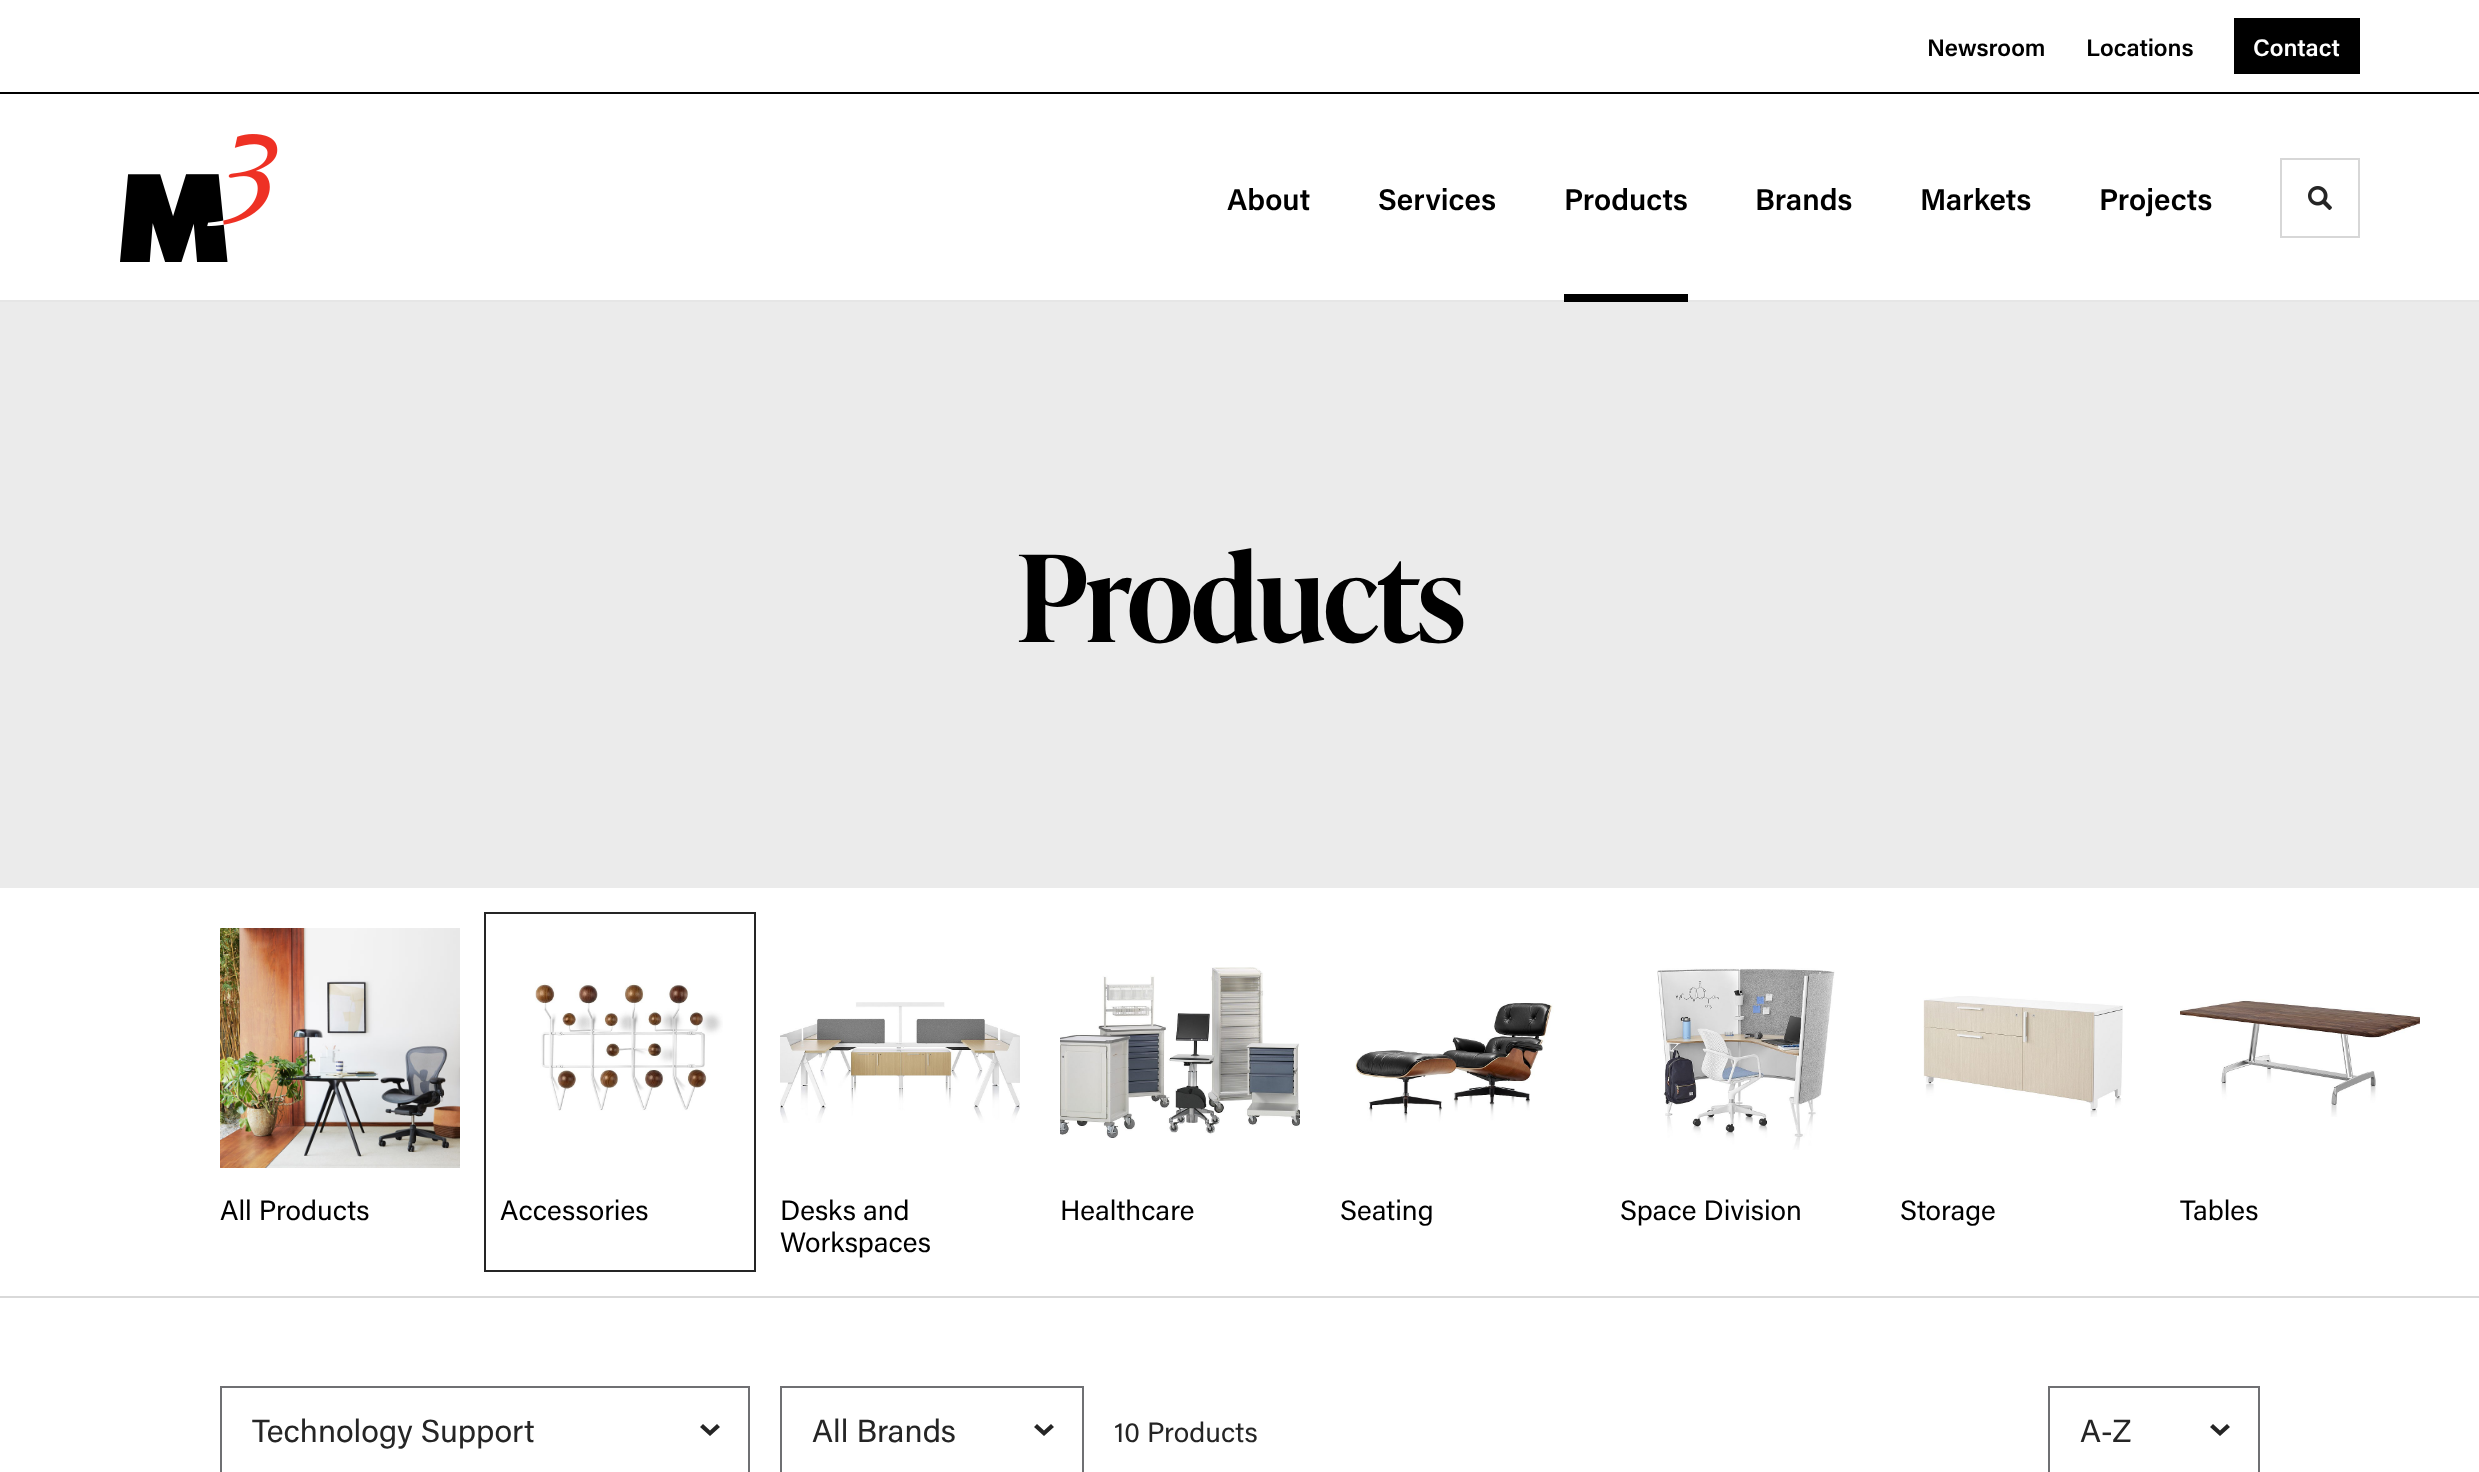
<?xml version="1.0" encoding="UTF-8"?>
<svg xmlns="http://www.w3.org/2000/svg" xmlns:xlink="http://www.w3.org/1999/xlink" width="2479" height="1472">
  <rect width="100%" height="100%" fill="#ffffff" />
  <rect y="92" width="2479" height="2" fill="#000000" />
  <rect x="2234" y="18" width="126" height="56" fill="#000000" />
  <rect y="300" width="2479" height="2" fill="#e6e6e6" />
  <image x="120" y="134" width="158" height="128" xlink:href="image1.png" />
  <rect x="1564" y="294" width="124" height="8" fill="#000000" />
  <rect x="2281" y="159" width="78" height="78" fill="none" stroke="#d7d7d7" stroke-width="2" />
  <image x="2308" y="186" width="24" height="24" xlink:href="image2.png" />
  <rect y="302" width="2479" height="586" fill="#ebebeb" />
  <rect y="1296" width="2479" height="2" fill="#d9d9d9" />
  <image x="220" y="928" width="240" height="240" xlink:href="image3.png" />
  <image x="535" y="983" width="188" height="128" xlink:href="image4.png" />
  <rect x="485" y="913" width="270" height="358" fill="none" stroke="#252525" stroke-width="2" />
  <image x="780" y="1002" width="240" height="121" xlink:href="image5.png" />
  <image x="1060" y="967" width="240" height="171" xlink:href="image6.png" />
  <image x="1355" y="1003" width="199" height="120" xlink:href="image7.png" />
  <image x="1657" y="968" width="178" height="182" xlink:href="image8.png" />
  <image x="1923" y="996" width="200" height="121" xlink:href="image9.png" />
  <image x="2180" y="999" width="240" height="118" xlink:href="image10.png" />
  <rect x="221" y="1387" width="528" height="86" fill="none" stroke="#6f7073" stroke-width="2" />
  <path d="M 703 1424 l -3 3 l 10 9 l 10 -9 l -3 -3 l -7 6.5 z" fill="#252525" fill-rule="evenodd" />
  <rect x="781" y="1387" width="302" height="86" fill="none" stroke="#6f7073" stroke-width="2" />
  <path d="M 1037 1424 l -3 3 l 10 9 l 10 -9 l -3 -3 l -7 6.5 z" fill="#252525" fill-rule="evenodd" />
  <rect x="2049" y="1387" width="210" height="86" fill="none" stroke="#6f7073" stroke-width="2" />
  <path d="M 2213 1424 l -3 3 l 10 9 l 10 -9 l -3 -3 l -7 6.5 z" fill="#252525" fill-rule="evenodd" />
  <text x="1927" y="56" style="font-family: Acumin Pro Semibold; font-size: 24px; font-weight: 600; fill: #000000">Newsroom</text>
  <text x="2086" y="56" style="font-family: Acumin Pro Semibold; font-size: 24px; font-weight: 600; fill: #000000">Locations</text>
  <text x="2253" y="56" style="font-family: Acumin Pro Semibold; font-size: 24px; font-weight: 600; fill: #ffffff">Contact</text>
  <text x="1227" y="210" style="font-family: Acumin Pro Semibold; font-size: 30px; font-weight: 600; fill: #000000">About</text>
  <text x="1378" y="210" style="font-family: Acumin Pro Semibold; font-size: 30px; font-weight: 600; fill: #000000">Services</text>
  <text x="1564" y="210" style="font-family: Acumin Pro Semibold; font-size: 30px; font-weight: 600; fill: #000000">Products</text>
  <text x="1755" y="210" style="font-family: Acumin Pro Semibold; font-size: 30px; font-weight: 600; fill: #000000">Brands</text>
  <text x="1920" y="210" style="font-family: Acumin Pro Semibold; font-size: 30px; font-weight: 600; fill: #000000">Markets</text>
  <text x="2099" y="210" style="font-family: Acumin Pro Semibold; font-size: 30px; font-weight: 600; fill: #000000">Projects</text>
  <text x="1017" y="642" style="font-family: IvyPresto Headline; font-size: 120px; font-weight: 600; letter-spacing: -2px; fill: #000000">Products</text>
  <text x="220" y="1220" style="font-family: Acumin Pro; font-size: 28px; fill: #000000">All Products</text>
  <text x="500" y="1220" style="font-family: Acumin Pro; font-size: 28px; fill: #000000">Accessories</text>
  <text x="780" y="1220" style="font-family: Acumin Pro; font-size: 28px; fill: #000000">Desks and</text>
  <text x="780" y="1252" style="font-family: Acumin Pro; font-size: 28px; fill: #000000">Workspaces</text>
  <text x="1060" y="1220" style="font-family: Acumin Pro; font-size: 28px; fill: #000000">Healthcare</text>
  <text x="1340" y="1220" style="font-family: Acumin Pro; font-size: 28px; fill: #000000">Seating</text>
  <text x="1620" y="1220" style="font-family: Acumin Pro; font-size: 28px; fill: #000000">Space Division</text>
  <text x="1900" y="1220" style="font-family: Acumin Pro; font-size: 28px; fill: #000000">Storage</text>
  <text x="2180" y="1220" style="font-family: Acumin Pro; font-size: 28px; fill: #000000">Tables</text>
  <text x="252" y="1442" style="font-family: Acumin Pro; font-size: 32px; fill: #252525">Technology Support</text>
  <text x="812" y="1442" style="font-family: Acumin Pro; font-size: 32px; fill: #252525">All Brands</text>
  <text x="1114" y="1442" style="font-family: Acumin Pro; font-size: 28px; fill: #252525">10 Products</text>
  <text x="2080" y="1442" style="font-family: Acumin Pro; font-size: 32px; fill: #252525">A-Z</text>
</svg>
